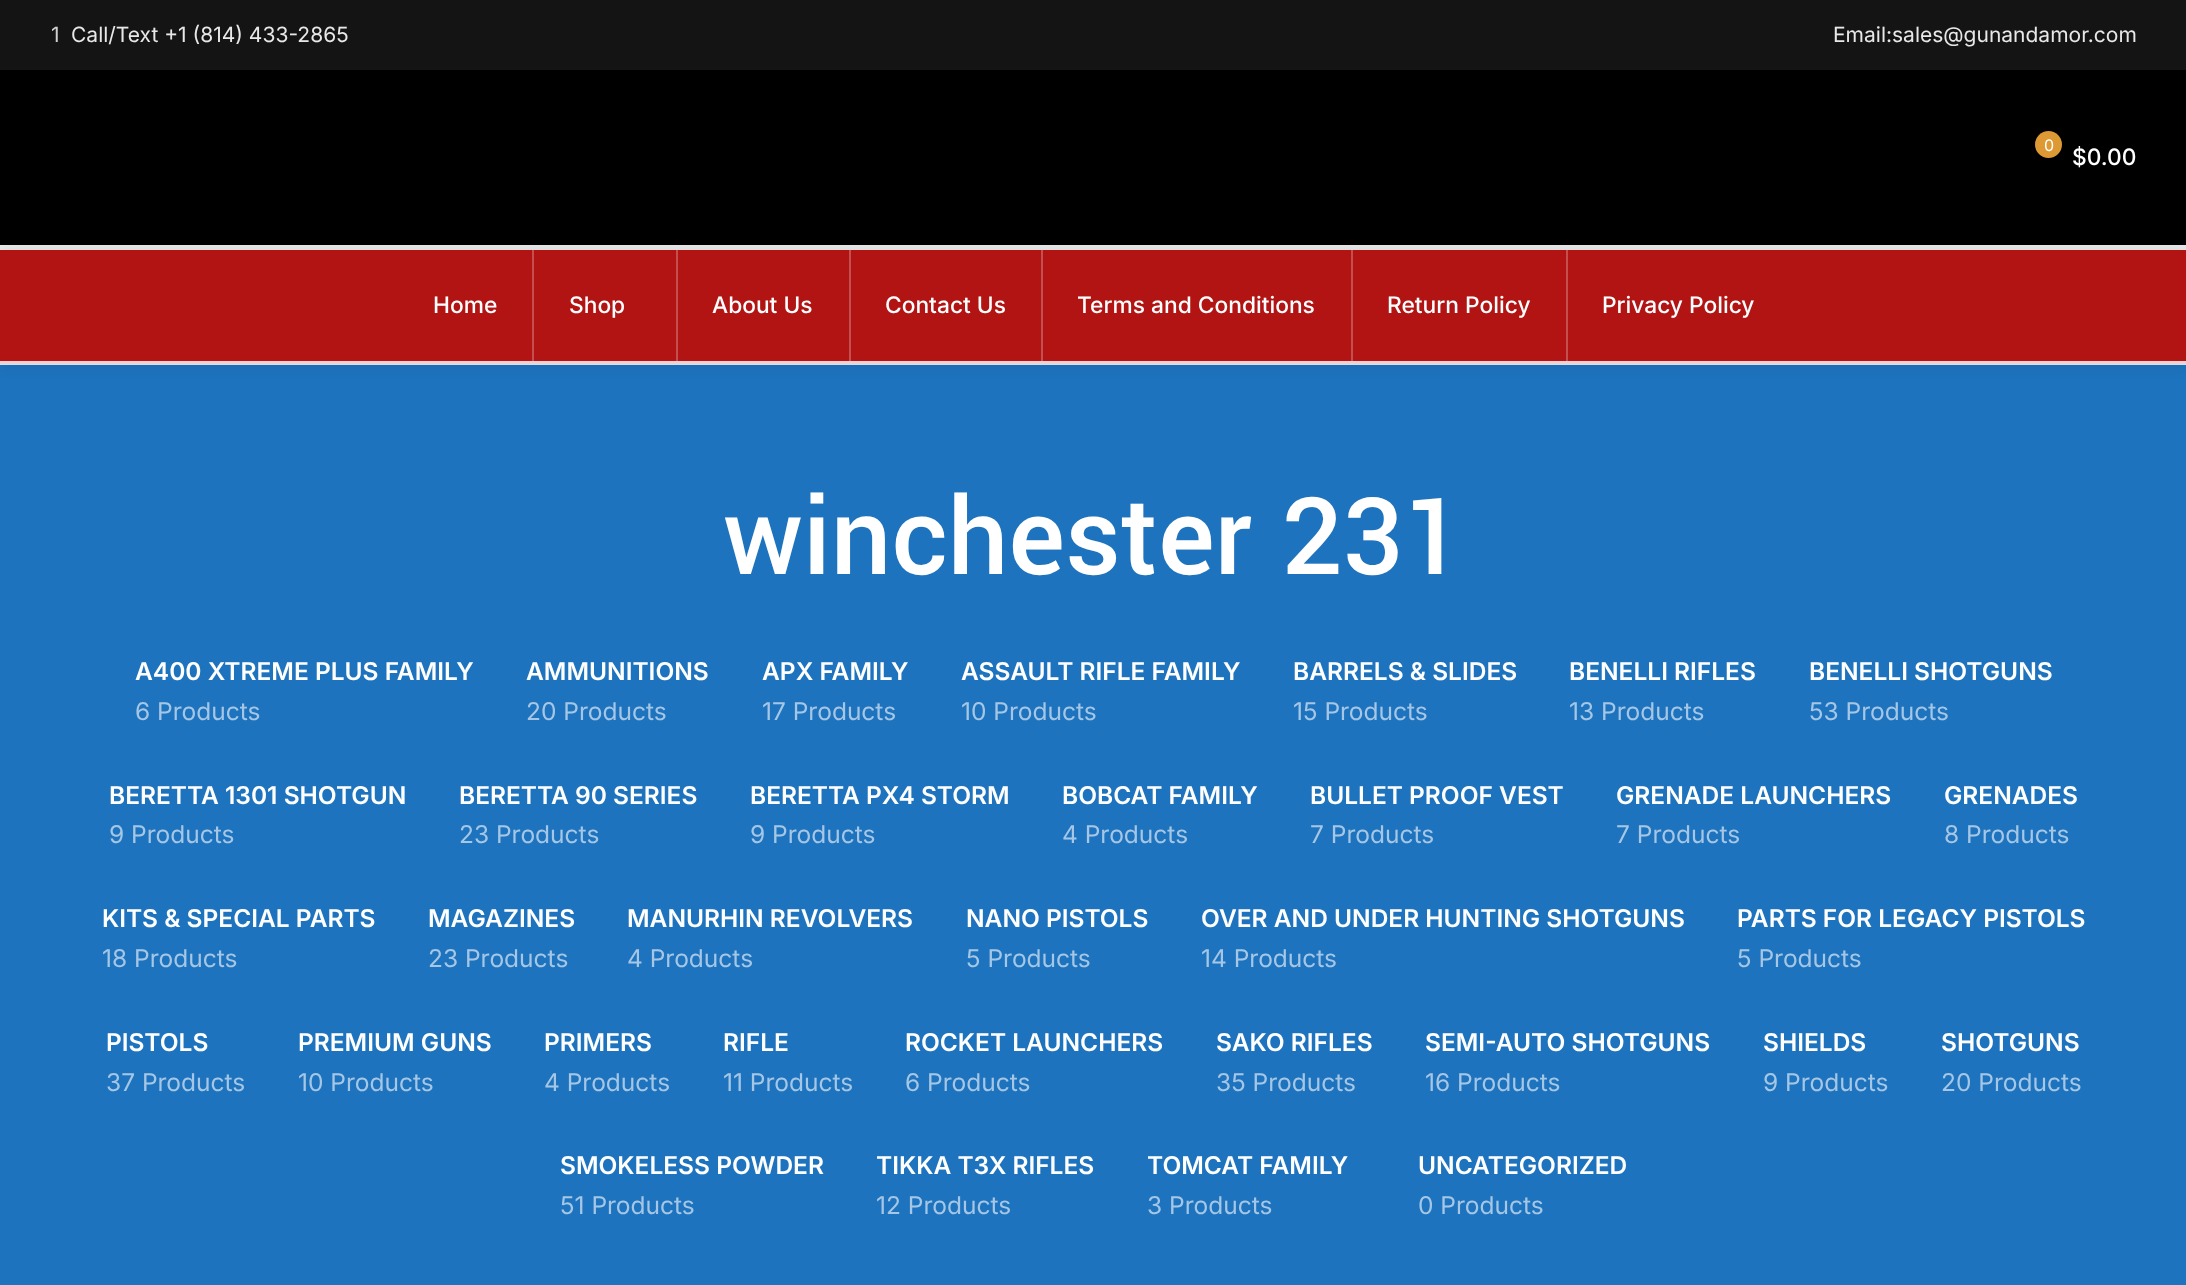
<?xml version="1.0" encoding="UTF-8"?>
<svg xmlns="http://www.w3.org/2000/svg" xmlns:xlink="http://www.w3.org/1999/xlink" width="2186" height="1285">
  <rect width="100%" height="100%" fill="#1e73be" />
  <rect width="2186" height="70" fill="#141415" />
  <rect y="70" width="2186" height="175" fill="#000000" />
  <rect y="245" width="2186" height="5" fill="#e8e8e8" />
  <circle cx="2048.5" cy="144.5" r="13.5" fill="#dd9933" />
  <rect y="252" width="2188" height="114" fill="#000000" fill-opacity="0.1" filter="blur(7px)" />
  <rect y="250" width="2186" height="114" fill="#b21414" />
  <rect y="361" width="2186" height="4" fill="#ffffff" fill-opacity="0.8" />
  <rect x="532" y="250" width="2" height="111" fill="#c54f4f" />
  <rect x="676" y="250" width="2" height="111" fill="#c54f4f" />
  <rect x="849" y="250" width="2" height="111" fill="#c54f4f" />
  <rect x="1041" y="250" width="2" height="111" fill="#c54f4f" />
  <rect x="1351" y="250" width="2" height="111" fill="#c54f4f" />
  <rect x="1566" y="250" width="2" height="111" fill="#c54f4f" />
  <text x="51" y="42" style="font-family: Inter; font-size: 21px; fill: #d0d0d0">1</text>
  <text x="71" y="42" style="font-family: Inter; font-size: 21px; fill: #e8e8e8">Call/Text +1 (814) 433-2865</text>
  <text x="1833" y="42" style="font-family: Inter; font-size: 21px; fill: #e8e8e8">Email:sales@gunandamor.com</text>
  <text x="2044" y="151" style="font-family: Inter; font-size: 16px; fill: #ffffff">0</text>
  <text x="2072" y="165" style="font-family: Inter; font-size: 22.75px; font-weight: 500; fill: #ffffff">$0.00</text>
  <text x="433" y="313" style="font-family: Inter; font-size: 22.75px; font-weight: 500; fill: #ffffff">Home</text>
  <text x="569" y="313" style="font-family: Inter; font-size: 22.75px; font-weight: 500; fill: #ffffff">Shop</text>
  <text x="712" y="313" style="font-family: Inter; font-size: 22.75px; font-weight: 500; fill: #ffffff">About Us</text>
  <text x="885" y="313" style="font-family: Inter; font-size: 22.75px; font-weight: 500; fill: #ffffff">Contact Us</text>
  <text x="1077" y="313" style="font-family: Inter; font-size: 22.75px; font-weight: 500; fill: #ffffff">Terms and Conditions</text>
  <text x="1387" y="313" style="font-family: Inter; font-size: 22.75px; font-weight: 500; fill: #ffffff">Return Policy</text>
  <text x="1602" y="313" style="font-family: Inter; font-size: 22.75px; font-weight: 500; fill: #ffffff">Privacy Policy</text>
  <text x="723" y="574" style="font-family: Yantramanav; font-size: 119px; font-weight: 500; fill: #ffffff">winchester 231</text>
  <text x="135" y="680" style="font-family: Inter; font-size: 24.5px; font-weight: 600; fill: #ffffff">A400 XTREME PLUS FAMILY</text>
  <text x="135" y="720" style="font-family: Inter; font-size: 24.5px; fill: #a5c7e5">6 Products</text>
  <text x="526" y="680" style="font-family: Inter; font-size: 24.5px; font-weight: 600; fill: #ffffff">AMMUNITIONS</text>
  <text x="526" y="720" style="font-family: Inter; font-size: 24.5px; fill: #a5c7e5">20 Products</text>
  <text x="762" y="680" style="font-family: Inter; font-size: 24.5px; font-weight: 600; fill: #ffffff">APX FAMILY</text>
  <text x="762" y="720" style="font-family: Inter; font-size: 24.5px; fill: #a5c7e5">17 Products</text>
  <text x="961" y="680" style="font-family: Inter; font-size: 24.5px; font-weight: 600; fill: #ffffff">ASSAULT RIFLE FAMILY</text>
  <text x="961" y="720" style="font-family: Inter; font-size: 24.5px; fill: #a5c7e5">10 Products</text>
  <text x="1293" y="680" style="font-family: Inter; font-size: 24.5px; font-weight: 600; fill: #ffffff">BARRELS &amp; SLIDES</text>
  <text x="1293" y="720" style="font-family: Inter; font-size: 24.5px; fill: #a5c7e5">15 Products</text>
  <text x="1569" y="680" style="font-family: Inter; font-size: 24.5px; font-weight: 600; fill: #ffffff">BENELLI RIFLES</text>
  <text x="1569" y="720" style="font-family: Inter; font-size: 24.5px; fill: #a5c7e5">13 Products</text>
  <text x="1809" y="680" style="font-family: Inter; font-size: 24.5px; font-weight: 600; fill: #ffffff">BENELLI SHOTGUNS</text>
  <text x="1809" y="720" style="font-family: Inter; font-size: 24.5px; fill: #a5c7e5">53 Products</text>
  <text x="109" y="804" style="font-family: Inter; font-size: 24.5px; font-weight: 600; fill: #ffffff">BERETTA 1301 SHOTGUN</text>
  <text x="109" y="843" style="font-family: Inter; font-size: 24.5px; fill: #a5c7e5">9 Products</text>
  <text x="459" y="804" style="font-family: Inter; font-size: 24.5px; font-weight: 600; fill: #ffffff">BERETTA 90 SERIES</text>
  <text x="459" y="843" style="font-family: Inter; font-size: 24.5px; fill: #a5c7e5">23 Products</text>
  <text x="750" y="804" style="font-family: Inter; font-size: 24.5px; font-weight: 600; fill: #ffffff">BERETTA PX4 STORM</text>
  <text x="750" y="843" style="font-family: Inter; font-size: 24.5px; fill: #a5c7e5">9 Products</text>
  <text x="1062" y="804" style="font-family: Inter; font-size: 24.5px; font-weight: 600; fill: #ffffff">BOBCAT FAMILY</text>
  <text x="1062" y="843" style="font-family: Inter; font-size: 24.5px; fill: #a5c7e5">4 Products</text>
  <text x="1310" y="804" style="font-family: Inter; font-size: 24.5px; font-weight: 600; fill: #ffffff">BULLET PROOF VEST</text>
  <text x="1310" y="843" style="font-family: Inter; font-size: 24.5px; fill: #a5c7e5">7 Products</text>
  <text x="1616" y="804" style="font-family: Inter; font-size: 24.5px; font-weight: 600; fill: #ffffff">GRENADE LAUNCHERS</text>
  <text x="1616" y="843" style="font-family: Inter; font-size: 24.5px; fill: #a5c7e5">7 Products</text>
  <text x="1944" y="804" style="font-family: Inter; font-size: 24.5px; font-weight: 600; fill: #ffffff">GRENADES</text>
  <text x="1944" y="843" style="font-family: Inter; font-size: 24.5px; fill: #a5c7e5">8 Products</text>
  <text x="102" y="927" style="font-family: Inter; font-size: 24.5px; font-weight: 600; fill: #ffffff">KITS &amp; SPECIAL PARTS</text>
  <text x="102" y="967" style="font-family: Inter; font-size: 24.5px; fill: #a5c7e5">18 Products</text>
  <text x="428" y="927" style="font-family: Inter; font-size: 24.5px; font-weight: 600; fill: #ffffff">MAGAZINES</text>
  <text x="428" y="967" style="font-family: Inter; font-size: 24.5px; fill: #a5c7e5">23 Products</text>
  <text x="627" y="927" style="font-family: Inter; font-size: 24.5px; font-weight: 600; fill: #ffffff">MANURHIN REVOLVERS</text>
  <text x="627" y="967" style="font-family: Inter; font-size: 24.5px; fill: #a5c7e5">4 Products</text>
  <text x="966" y="927" style="font-family: Inter; font-size: 24.5px; font-weight: 600; fill: #ffffff">NANO PISTOLS</text>
  <text x="966" y="967" style="font-family: Inter; font-size: 24.5px; fill: #a5c7e5">5 Products</text>
  <text x="1201" y="927" style="font-family: Inter; font-size: 24.5px; font-weight: 600; fill: #ffffff">OVER AND UNDER HUNTING SHOTGUNS</text>
  <text x="1201" y="967" style="font-family: Inter; font-size: 24.5px; fill: #a5c7e5">14 Products</text>
  <text x="1737" y="927" style="font-family: Inter; font-size: 24.5px; font-weight: 600; fill: #ffffff">PARTS FOR LEGACY PISTOLS</text>
  <text x="1737" y="967" style="font-family: Inter; font-size: 24.5px; fill: #a5c7e5">5 Products</text>
  <text x="106" y="1051" style="font-family: Inter; font-size: 24.5px; font-weight: 600; fill: #ffffff">PISTOLS</text>
  <text x="106" y="1091" style="font-family: Inter; font-size: 24.5px; fill: #a5c7e5">37 Products</text>
  <text x="298" y="1051" style="font-family: Inter; font-size: 24.5px; font-weight: 600; fill: #ffffff">PREMIUM GUNS</text>
  <text x="298" y="1091" style="font-family: Inter; font-size: 24.5px; fill: #a5c7e5">10 Products</text>
  <text x="544" y="1051" style="font-family: Inter; font-size: 24.5px; font-weight: 600; fill: #ffffff">PRIMERS</text>
  <text x="544" y="1091" style="font-family: Inter; font-size: 24.5px; fill: #a5c7e5">4 Products</text>
  <text x="723" y="1051" style="font-family: Inter; font-size: 24.5px; font-weight: 600; fill: #ffffff">RIFLE</text>
  <text x="723" y="1091" style="font-family: Inter; font-size: 24.5px; fill: #a5c7e5">11 Products</text>
  <text x="905" y="1051" style="font-family: Inter; font-size: 24.5px; font-weight: 600; fill: #ffffff">ROCKET LAUNCHERS</text>
  <text x="905" y="1091" style="font-family: Inter; font-size: 24.5px; fill: #a5c7e5">6 Products</text>
  <text x="1216" y="1051" style="font-family: Inter; font-size: 24.5px; font-weight: 600; fill: #ffffff">SAKO RIFLES</text>
  <text x="1216" y="1091" style="font-family: Inter; font-size: 24.5px; fill: #a5c7e5">35 Products</text>
  <text x="1425" y="1051" style="font-family: Inter; font-size: 24.5px; font-weight: 600; fill: #ffffff">SEMI-AUTO SHOTGUNS</text>
  <text x="1425" y="1091" style="font-family: Inter; font-size: 24.5px; fill: #a5c7e5">16 Products</text>
  <text x="1763" y="1051" style="font-family: Inter; font-size: 24.5px; font-weight: 600; fill: #ffffff">SHIELDS</text>
  <text x="1763" y="1091" style="font-family: Inter; font-size: 24.5px; fill: #a5c7e5">9 Products</text>
  <text x="1941" y="1051" style="font-family: Inter; font-size: 24.5px; font-weight: 600; fill: #ffffff">SHOTGUNS</text>
  <text x="1941" y="1091" style="font-family: Inter; font-size: 24.5px; fill: #a5c7e5">20 Products</text>
  <text x="560" y="1174" style="font-family: Inter; font-size: 24.5px; font-weight: 600; fill: #ffffff">SMOKELESS POWDER</text>
  <text x="560" y="1214" style="font-family: Inter; font-size: 24.5px; fill: #a5c7e5">51 Products</text>
  <text x="876" y="1174" style="font-family: Inter; font-size: 24.5px; font-weight: 600; fill: #ffffff">TIKKA T3X RIFLES</text>
  <text x="876" y="1214" style="font-family: Inter; font-size: 24.5px; fill: #a5c7e5">12 Products</text>
  <text x="1147" y="1174" style="font-family: Inter; font-size: 24.5px; font-weight: 600; fill: #ffffff">TOMCAT FAMILY</text>
  <text x="1147" y="1214" style="font-family: Inter; font-size: 24.5px; fill: #a5c7e5">3 Products</text>
  <text x="1418" y="1174" style="font-family: Inter; font-size: 24.5px; font-weight: 600; fill: #ffffff">UNCATEGORIZED</text>
  <text x="1418" y="1214" style="font-family: Inter; font-size: 24.5px; fill: #a5c7e5">0 Products</text>
</svg>
